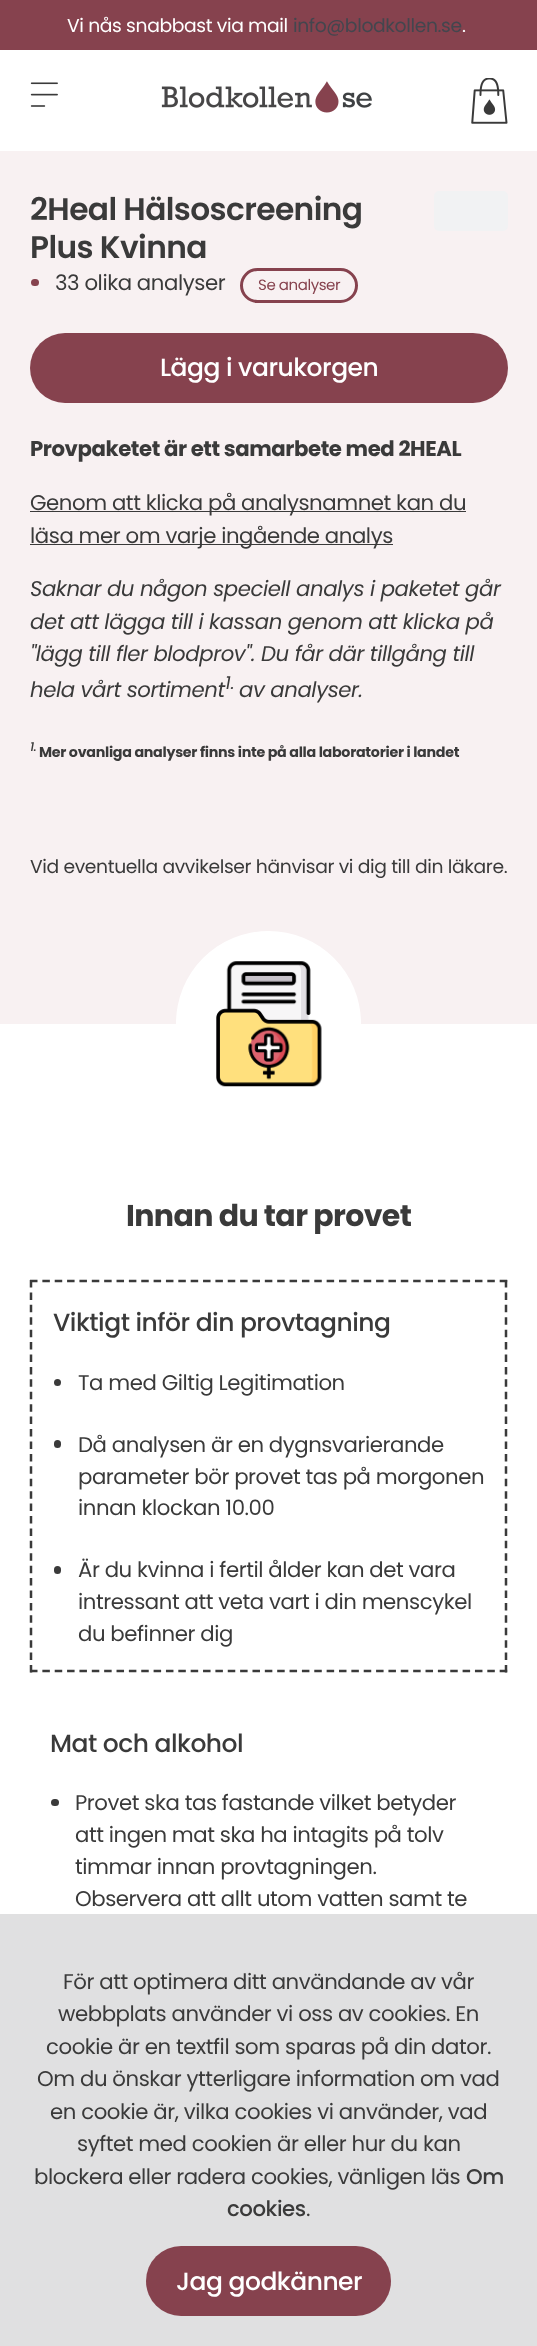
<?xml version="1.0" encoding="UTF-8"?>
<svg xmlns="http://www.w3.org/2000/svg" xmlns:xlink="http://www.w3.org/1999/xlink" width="537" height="2346">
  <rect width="100%" height="100%" fill="#ffffff" />
  <rect width="537" height="50" fill="#86424e" />
  <image x="30" y="82" width="28" height="25" xlink:href="image1.png" />
  <image x="161" y="81" width="211" height="32" xlink:href="image2.png" />
  <image x="471" y="78" width="37" height="46" xlink:href="image3.png" />
  <rect y="151" width="537" height="873" fill="#f8f1f2" />
  <rect x="434" y="191" width="74" height="40" rx="5" fill="#f1f2f3" />
  <rect x="31" y="279" width="8" height="7" rx="3.5" fill="#86424e" />
  <rect x="241.5" y="269.5" width="115" height="32" rx="16" fill="none" stroke="#86424e" stroke-width="3" />
  <rect x="30" y="333" width="478" height="70" rx="35" fill="#86424e" />
  <rect x="30" y="511" width="436" height="1" fill="#3a3a3a" />
  <rect x="30" y="544" width="363" height="1" fill="#3a3a3a" />
  <circle cx="268.5" cy="1023.5" r="92.5" fill="#ffffff" />
  <image x="216" y="961" width="106" height="126" xlink:href="image4.png" />
  <path d="M 30 1281 h 477.5" fill="none" stroke="#3a3a3a" stroke-width="2.5" stroke-dasharray="7.5 4.86" />
  <path d="M 506 1280 v 392.5" fill="none" stroke="#3a3a3a" stroke-width="2.5" stroke-dasharray="7.5 4.92" />
  <path d="M 30 1671 h 477.5" fill="none" stroke="#3a3a3a" stroke-width="2.5" stroke-dasharray="7.5 4.86" />
  <path d="M 31 1280 v 392.5" fill="none" stroke="#3a3a3a" stroke-width="2.5" stroke-dasharray="7.5 4.92" />
  <circle cx="57.5" cy="1382.5" r="3.5" fill="#3a3a3a" />
  <rect x="54" y="1440" width="7" height="8" rx="3.5" fill="#3a3a3a" />
  <rect x="54" y="1566" width="7" height="8" rx="3.5" fill="#3a3a3a" />
  <rect x="51" y="1799" width="8" height="7" rx="3.5" fill="#3a3a3a" />
  <rect y="1914" width="537" height="432" fill="#e0e0e1" />
  <rect x="146" y="2246" width="245" height="70" rx="35" fill="#86424e" />
  <text x="67" y="32" style="font-family: Poppins; font-size: 18.75px; letter-spacing: -0.38px; fill: #ffffff">Vi nås snabbast via mail</text>
  <text x="293" y="32" style="font-family: Poppins; font-size: 18.75px; letter-spacing: -0.38px; fill: #43464e">info@blodkollen.se</text>
  <text x="462" y="32" style="font-family: Poppins; font-size: 18.75px; letter-spacing: -0.38px; fill: #ffffff">.</text>
  <text x="30" y="220" style="font-family: Poppins; font-size: 31.25px; font-weight: 600; letter-spacing: -0.6px; fill: #3a3a3a">2Heal Hälsoscreening</text>
  <text x="30" y="258" style="font-family: Poppins; font-size: 31.25px; font-weight: 600; letter-spacing: -0.6px; fill: #3a3a3a">Plus Kvinna</text>
  <text x="55" y="290" style="font-family: Poppins; font-size: 21.25px; letter-spacing: -0.43px; fill: #3a3a3a">33 olika analyser</text>
  <text x="258" y="290" style="font-family: Poppins; font-size: 15px; letter-spacing: -0.43px; fill: #86424e">Se analyser</text>
  <text x="160" y="376" style="font-family: Poppins; font-size: 25px; font-weight: 500; letter-spacing: -0.5px; fill: #ffffff">Lägg i varukorgen</text>
  <text x="30" y="456" style="font-family: Poppins; font-size: 21.25px; font-weight: bold; letter-spacing: -0.43px; fill: #3a3a3a">Provpaketet är ett samarbete med 2HEAL</text>
  <text x="30" y="510" style="font-family: Poppins; font-size: 21.25px; letter-spacing: -0.43px; fill: #3a3a3a">Genom att klicka på analysnamnet kan du</text>
  <text x="30" y="543" style="font-family: Poppins; font-size: 21.25px; letter-spacing: -0.43px; fill: #3a3a3a">läsa mer om varje ingående analys</text>
  <text x="30" y="596" style="font-family: Poppins; font-size: 21.25px; font-style: italic; letter-spacing: -0.43px; fill: #3a3a3a">Saknar du någon speciell analys i paketet går</text>
  <text x="30" y="629" style="font-family: Poppins; font-size: 21.25px; font-style: italic; letter-spacing: -0.43px; fill: #3a3a3a">det att lägga till i kassan genom att klicka på</text>
  <text x="30" y="661" style="font-family: Poppins; font-size: 21.25px; font-style: italic; letter-spacing: -0.43px; fill: #3a3a3a">"lägg till fler blodprov". Du får där tillgång till</text>
  <text x="30" y="697" style="font-family: Poppins; font-size: 21.25px; font-style: italic; letter-spacing: -0.43px; fill: #3a3a3a">hela vårt sortiment</text>
  <text x="225" y="689" style="font-family: Poppins; font-size: 18px; font-style: italic; fill: #3a3a3a">1.</text>
  <text x="239" y="697" style="font-family: Poppins; font-size: 21.25px; font-style: italic; letter-spacing: -0.43px; fill: #3a3a3a">av analyser.</text>
  <text x="30" y="751" style="font-family: Poppins; font-size: 12px; font-weight: bold; font-style: italic; fill: #3a3a3a">1.</text>
  <text x="39" y="757" style="font-family: Poppins; font-size: 14.25px; font-weight: bold; letter-spacing: -0.28px; fill: #3a3a3a">Mer ovanliga analyser finns inte på alla laboratorier i landet</text>
  <text x="30" y="873" style="font-family: Poppins; font-size: 18.75px; letter-spacing: -0.38px; fill: #3a3a3a">Vid eventuella avvikelser hänvisar vi dig till din läkare.</text>
  <text x="126" y="1226" style="font-family: Poppins; font-size: 30px; font-weight: bold; letter-spacing: -0.6px; fill: #3a3a3a">Innan du tar provet</text>
  <text x="53" y="1331" style="font-family: Poppins; font-size: 25px; font-weight: 500; letter-spacing: -0.5px; fill: #3a3a3a">Viktigt inför din provtagning</text>
  <text x="78" y="1390" style="font-family: Poppins; font-size: 21.25px; letter-spacing: -0.43px; fill: #3a3a3a">Ta med Giltig Legitimation</text>
  <text x="78" y="1452" style="font-family: Poppins; font-size: 21.25px; letter-spacing: -0.43px; fill: #3a3a3a">Då analysen är en dygnsvarierande</text>
  <text x="78" y="1484" style="font-family: Poppins; font-size: 21.25px; letter-spacing: -0.43px; fill: #3a3a3a">parameter bör provet tas på morgonen</text>
  <text x="78" y="1515" style="font-family: Poppins; font-size: 21.25px; letter-spacing: -0.43px; fill: #3a3a3a">innan klockan 10.00</text>
  <text x="78" y="1577" style="font-family: Poppins; font-size: 21.25px; letter-spacing: -0.43px; fill: #3a3a3a">Är du kvinna i fertil ålder kan det vara</text>
  <text x="78" y="1609" style="font-family: Poppins; font-size: 21.25px; letter-spacing: -0.43px; fill: #3a3a3a">intressant att veta vart i din menscykel</text>
  <text x="78" y="1641" style="font-family: Poppins; font-size: 21.25px; letter-spacing: -0.43px; fill: #3a3a3a">du befinner dig</text>
  <text x="50" y="1752" style="font-family: Poppins; font-size: 25px; font-weight: 500; letter-spacing: -0.5px; fill: #3a3a3a">Mat och alkohol</text>
  <text x="75" y="1810" style="font-family: Poppins; font-size: 21.25px; letter-spacing: -0.43px; fill: #3a3a3a">Provet ska tas fastande vilket betyder</text>
  <text x="75" y="1842" style="font-family: Poppins; font-size: 21.25px; letter-spacing: -0.43px; fill: #3a3a3a">att ingen mat ska ha intagits på tolv</text>
  <text x="75" y="1874" style="font-family: Poppins; font-size: 21.25px; letter-spacing: -0.43px; fill: #3a3a3a">timmar innan provtagningen.</text>
  <text x="75" y="1906" style="font-family: Poppins; font-size: 21.25px; letter-spacing: -0.43px; fill: #3a3a3a">Observera att allt utom vatten samt te</text>
  <text x="63" y="1989" style="font-family: Poppins; font-size: 21.25px; letter-spacing: -0.43px; fill: #3a3a3a">För att optimera ditt användande av vår</text>
  <text x="58" y="2021" style="font-family: Poppins; font-size: 21.25px; letter-spacing: -0.43px; fill: #3a3a3a">webbplats använder vi oss av cookies. En</text>
  <text x="46" y="2054" style="font-family: Poppins; font-size: 21.25px; letter-spacing: -0.43px; fill: #3a3a3a">cookie är en textfil som sparas på din dator.</text>
  <text x="37" y="2086" style="font-family: Poppins; font-size: 21.25px; letter-spacing: -0.43px; fill: #3a3a3a">Om du önskar ytterligare information om vad</text>
  <text x="50" y="2119" style="font-family: Poppins; font-size: 21.25px; letter-spacing: -0.43px; fill: #3a3a3a">en cookie är, vilka cookies vi använder, vad</text>
  <text x="77" y="2151" style="font-family: Poppins; font-size: 21.25px; letter-spacing: -0.43px; fill: #3a3a3a">syftet med cookien är eller hur du kan</text>
  <text x="34" y="2184" style="font-family: Poppins; font-size: 21.25px; letter-spacing: -0.43px; fill: #3a3a3a">blockera eller radera cookies, vänligen läs</text>
  <text x="466" y="2184" style="font-family: Poppins; font-size: 21.25px; font-weight: 500; letter-spacing: -0.43px; fill: #3a3a3a">Om</text>
  <text x="227" y="2216" style="font-family: Poppins; font-size: 21.25px; font-weight: 500; letter-spacing: -0.43px; fill: #3a3a3a">cookies</text>
  <text x="306" y="2216" style="font-family: Poppins; font-size: 21.25px; letter-spacing: -0.43px; fill: #3a3a3a">.</text>
  <text x="176" y="2290" style="font-family: Poppins; font-size: 25px; font-weight: 500; letter-spacing: -0.5px; fill: #ffffff">Jag godkänner</text>
</svg>
